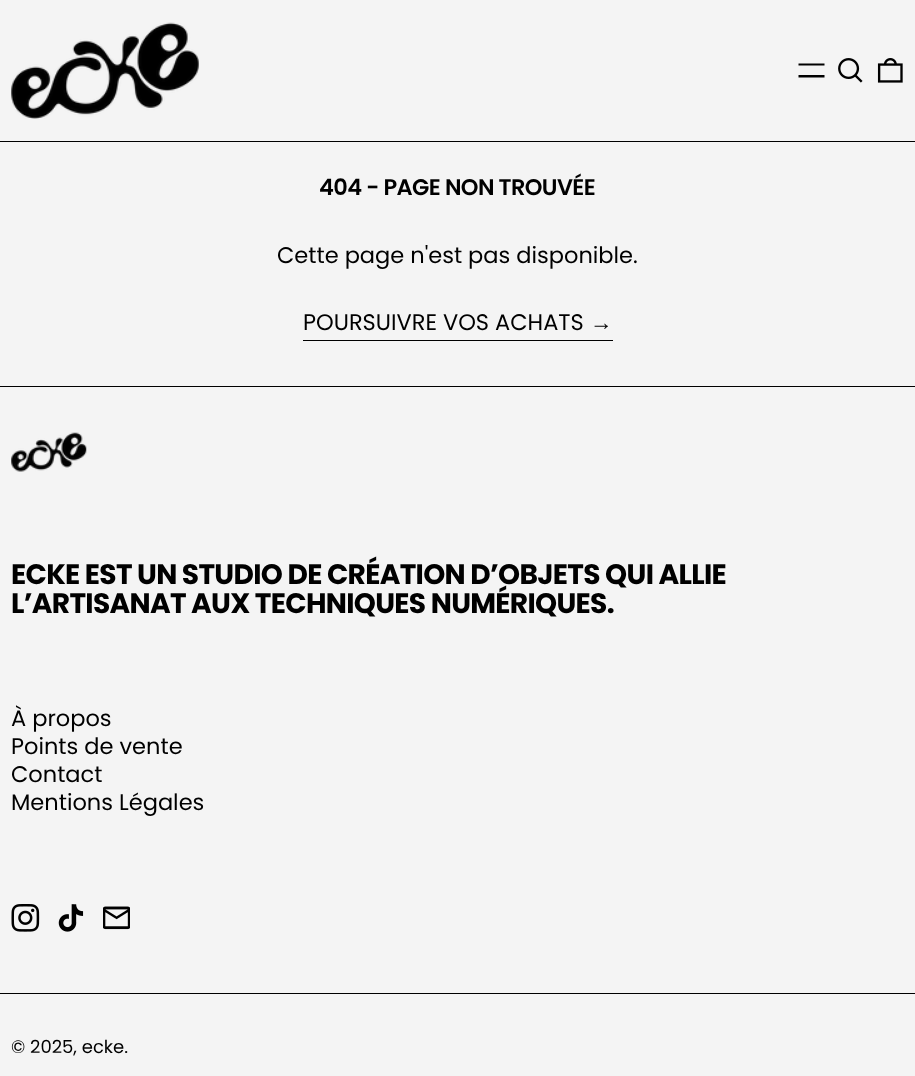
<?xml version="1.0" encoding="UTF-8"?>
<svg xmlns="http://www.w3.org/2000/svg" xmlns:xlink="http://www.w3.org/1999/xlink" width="915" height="1076">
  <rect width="100%" height="100%" fill="#f4f4f4" />
  <rect y="141" width="915" height="1" fill="#000000" />
  <image x="11" y="22" width="188" height="97" xlink:href="image1.png" />
  <path d="M 824.5 75 v 2.5 h -26 v -2.5 z m 0 -11.5 v 2 h -26 v -2 z" fill="#000000" fill-rule="evenodd" />
  <image x="838" y="58" width="25" height="25" xlink:href="image2.png" />
  <image x="877" y="58" width="26" height="25" xlink:href="image3.png" />
  <rect x="303" y="340" width="310" height="1" fill="#000000" />
  <rect y="386" width="915" height="1" fill="#000000" />
  <image x="11" y="432" width="76" height="40" xlink:href="image4.png" />
  <image x="11" y="904" width="29" height="28" xlink:href="image5.png" />
  <image x="58" y="904" width="26" height="28" xlink:href="image6.png" />
  <image x="103" y="906" width="27" height="24" xlink:href="image7.png" />
  <rect y="993" width="915" height="1" fill="#000000" />
  <text x="319" y="195" style="font-family: Poppins; font-size: 22.5px; font-weight: 600; letter-spacing: -0.6px; fill: #000000">404 - PAGE NON TROUVÉE</text>
  <text x="277" y="263" style="font-family: Poppins; font-size: 22.5px; fill: #000000">Cette page n'est pas disponible.</text>
  <text x="303" y="330" style="font-family: Poppins; font-size: 22.5px; fill: #000000">POURSUIVRE VOS ACHATS</text>
  <text x="590" y="330" style="font-family: Liberation Sans; font-size: 22.5px; fill: #000000">→</text>
  <text x="11" y="584" style="font-family: Poppins; font-size: 28.1px; font-weight: bold; letter-spacing: -0.7px; fill: #000000">ECKE EST UN STUDIO DE CRÉATION D’OBJETS QUI ALLIE</text>
  <text x="11" y="613" style="font-family: Poppins; font-size: 28.1px; font-weight: bold; letter-spacing: -0.7px; fill: #000000">L’ARTISANAT AUX TECHNIQUES NUMÉRIQUES.</text>
  <text x="11" y="726" style="font-family: Poppins; font-size: 22.5px; fill: #000000">À propos</text>
  <text x="11" y="754" style="font-family: Poppins; font-size: 22.5px; fill: #000000">Points de vente</text>
  <text x="11" y="782" style="font-family: Poppins; font-size: 22.5px; fill: #000000">Contact</text>
  <text x="11" y="810" style="font-family: Poppins; font-size: 22.5px; fill: #000000">Mentions Légales</text>
  <text x="11" y="1053" style="font-family: Poppins; font-size: 18px; fill: #000000">© 2025, ecke.</text>
</svg>
